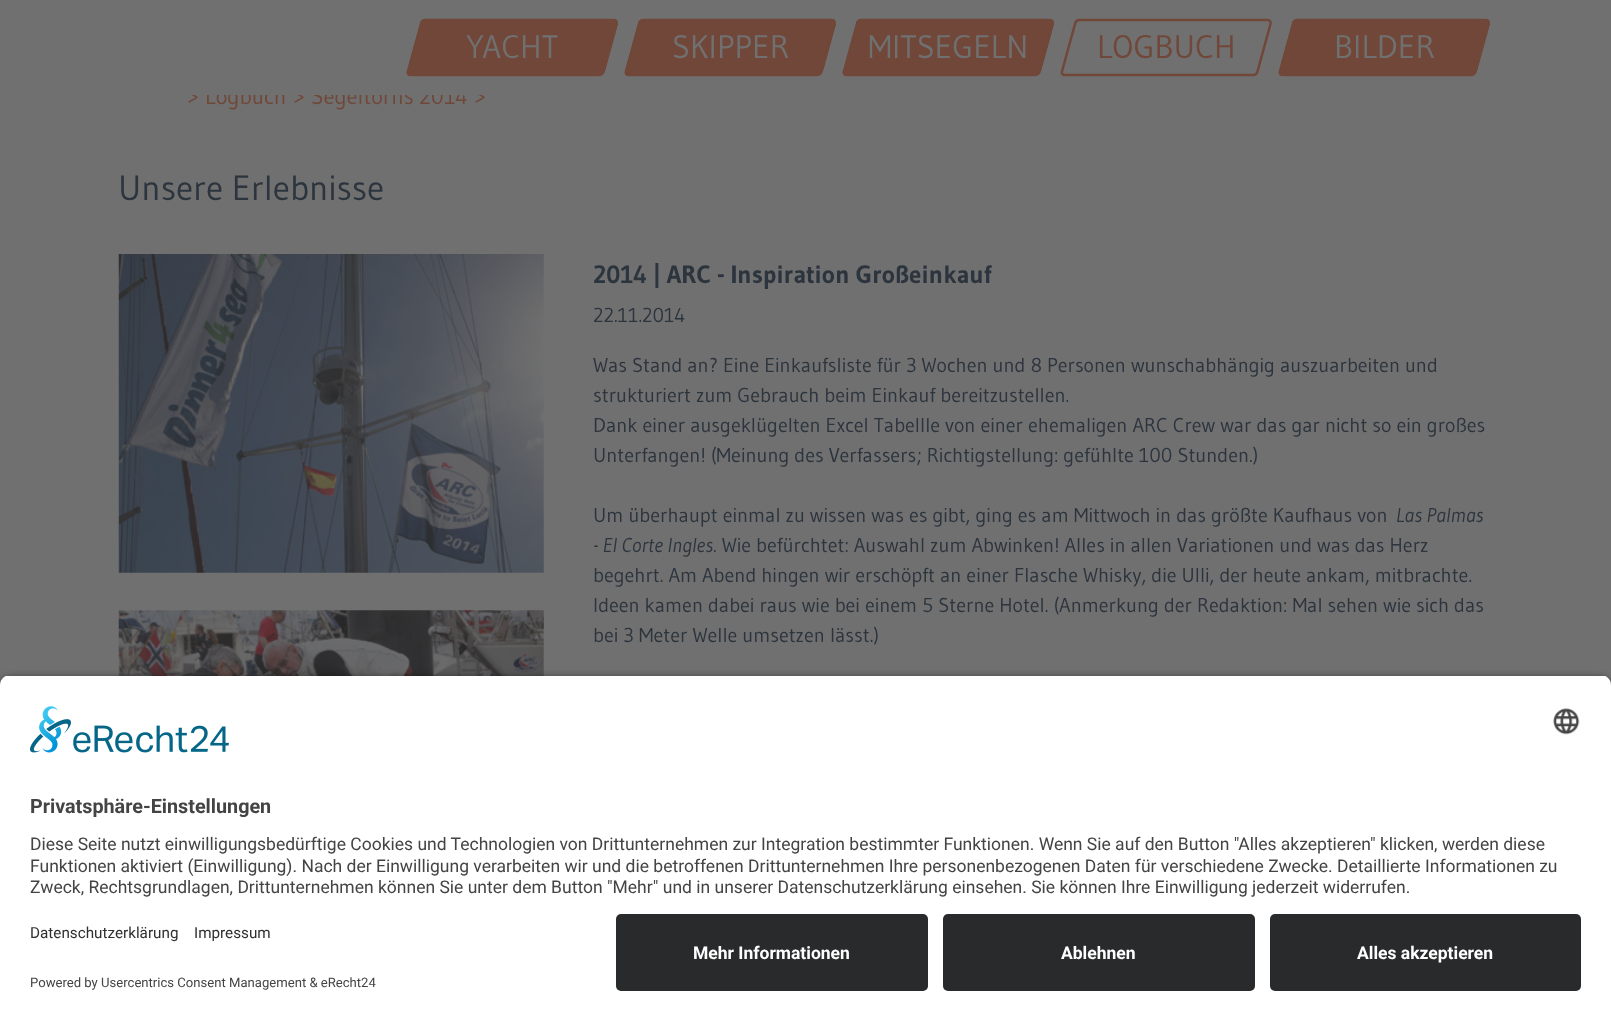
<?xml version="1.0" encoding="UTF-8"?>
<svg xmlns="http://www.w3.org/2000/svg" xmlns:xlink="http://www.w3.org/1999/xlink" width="1611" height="1021">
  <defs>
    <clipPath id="clip1"><path d="M 10 675 h 1591 c 5.5 0 10 4.5 10 10 v 219 h -1611 v -219 c 0 -5.5 4.5 -10 10 -10 z" /></clipPath>
  </defs>
  <rect width="100%" height="100%" fill="#707070" />
  <path d="M 426 19 h 188 c 3 0 4 2 4 5 l -13 47 c -1 3 -4 5 -7 5 h -188 c -2 0 -4 -2 -3 -5 l 13 -47 c 0 -3 3 -5 6 -5 z" fill="#704738" />
  <path d="M 425.5 20 h 188 c 2 0 3.5 1.5 3 4 l -13 47.5 c -0.5 2 -2.5 3.5 -5 3.5 h -188 c -2 0 -3 -1.5 -2.5 -3.5 l 13 -47.5 c 0.5 -2.5 2.5 -4 4.5 -4 z" fill="none" stroke="#704738" stroke-width="2.5" />
  <path d="M 644 19 h 188 c 3 0 4 2 4 5 l -13 47 c -1 3 -4 5 -7 5 h -188 c -2 0 -4 -2 -3 -5 l 13 -47 c 0 -3 3 -5 6 -5 z" fill="#704738" />
  <path d="M 643.5 20 h 188 c 2 0 3.5 1.5 3 4 l -13 47.5 c -0.5 2 -2.5 3.5 -5 3.5 h -188 c -2 0 -3 -1.5 -2.5 -3.5 l 13 -47.5 c 0.5 -2.5 2.5 -4 4.5 -4 z" fill="none" stroke="#704738" stroke-width="2.5" />
  <path d="M 862 19 h 188 c 3 0 4 2 4 5 l -13 47 c -1 3 -4 5 -7 5 h -188 c -2 0 -4 -2 -3 -5 l 13 -47 c 0 -3 3 -5 6 -5 z" fill="#704738" />
  <path d="M 861.5 20 h 188 c 2 0 3.5 1.5 3 4 l -13 47.5 c -0.5 2 -2.5 3.5 -5 3.5 h -188 c -2 0 -3 -1.5 -2.5 -3.5 l 13 -47.5 c 0.5 -2.5 2.5 -4 4.5 -4 z" fill="none" stroke="#704738" stroke-width="2.5" />
  <path d="M 1079.5 20 h 188 c 2 0 3.5 1.5 3 4 l -13 47.5 c -0.5 2 -2.5 3.5 -4.5 3.5 h -188.5 c -2 0 -3 -1.5 -2.5 -3.5 l 13 -47.5 c 0.5 -2.5 2.5 -4 4.5 -4 z" fill="none" stroke="#704738" stroke-width="2.5" />
  <path d="M 1298 19 h 188 c 3 0 4 2 4 5 l -13 47 c -1 3 -4 5 -7 5 h -188 c -2 0 -4 -2 -3 -5 l 13 -47 c 0 -3 3 -5 6 -5 z" fill="#704738" />
  <path d="M 1297.5 20 h 188 c 2 0 3.5 1.5 3 4 l -13 47.5 c -0.5 2 -2.5 3.5 -4.5 3.5 h -188 c -2.5 0 -3.5 -1.5 -3 -3.5 l 13 -47.5 c 0.5 -2.5 2.5 -4 4.5 -4 z" fill="none" stroke="#704738" stroke-width="2.5" />
  <image x="118" y="254" width="426" height="319" xlink:href="image1.png" />
  <image x="118" y="610" width="426" height="66" xlink:href="image2.png" />
  <rect y="679" width="1611" height="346" rx="10" fill="#000000" fill-opacity="0.8" filter="blur(4.5px)" />
  <g clip-path="url(#clip1)">
    <rect y="676" width="1611" height="228" fill="#ffffff" />
  </g>
  <image x="30" y="706" width="199" height="47" xlink:href="image3.png" />
  <image x="1553" y="708" width="27" height="27" xlink:href="image4.png" />
  <rect y="904" width="1611" height="117" fill="#ffffff" />
  <rect x="616" y="914" width="312" height="77" rx="5" fill="#292a2b" />
  <rect x="943" y="914" width="312" height="77" rx="5" fill="#292a2b" />
  <rect x="1270" y="914" width="311" height="77" rx="5" fill="#292a2b" />
  <text x="466" y="58" style="font-family: Gudea; font-size: 32.5px; fill: #707070">YACHT</text>
  <text x="672" y="58" style="font-family: Gudea; font-size: 32.5px; fill: #707070">SKIPPER</text>
  <text x="868" y="58" style="font-family: Gudea; font-size: 32.5px; fill: #707070">MITSEGELN</text>
  <text x="1097" y="58" style="font-family: Gudea; font-size: 32.5px; fill: #704738">LOGBUCH</text>
  <text x="1334" y="58" style="font-family: Gudea; font-size: 32.5px; fill: #707070">BILDER</text>
  <text x="187" y="104" style="font-family: Gudea; font-size: 22.5px; fill: #704738">&gt;</text>
  <text x="205" y="104" style="font-family: Gudea; font-size: 22.5px; fill: #704738">Logbuch</text>
  <text x="293" y="104" style="font-family: Gudea; font-size: 22.5px; fill: #704738">&gt;</text>
  <text x="311" y="104" style="font-family: Gudea; font-size: 22.5px; fill: #704738">Segeltörns 2014</text>
  <text x="474" y="104" style="font-family: Gudea; font-size: 22.5px; fill: #704738">&gt;</text>
  <rect x="188" y="88" width="293" height="7" fill="#707070" />
  <text x="118" y="200" style="font-family: Gudea; font-size: 35px; fill: #2c343e">Unsere Erlebnisse</text>
  <text x="593" y="283" style="font-family: Gudea; font-size: 25px; font-weight: bold; fill: #2c343e">2014 | ARC - Inspiration Großeinkauf</text>
  <text x="593" y="322" style="font-family: Gudea; font-size: 20px; fill: #2c343e">22.11.2014</text>
  <text x="593" y="372" style="font-family: Gudea; font-size: 20px; fill: #2c343e">Was Stand an? Eine Einkaufsliste für 3 Wochen und 8 Personen wunschabhängig auszuarbeiten und</text>
  <text x="593" y="402" style="font-family: Gudea; font-size: 20px; fill: #2c343e">strukturiert zum Gebrauch beim Einkauf bereitzustellen.</text>
  <text x="593" y="432" style="font-family: Gudea; font-size: 20px; fill: #2c343e">Dank einer ausgeklügelten Excel Tabellle von einer ehemaligen ARC Crew war das gar nicht so ein großes</text>
  <text x="593" y="462" style="font-family: Gudea; font-size: 20px; fill: #2c343e">Unterfangen! (Meinung des Verfassers; Richtigstellung: gefühlte 100 Stunden.)</text>
  <text x="593" y="522" style="font-family: Gudea; font-size: 20px; fill: #2c343e">Um überhaupt einmal zu wissen was es gibt, ging es am Mittwoch in das größte Kaufhaus von</text>
  <text x="1396" y="522" style="font-family: Gudea; font-size: 20px; font-style: italic; fill: #2c343e">Las Palmas</text>
  <text x="593" y="552" style="font-family: Gudea; font-size: 20px; font-style: italic; fill: #2c343e">- El Corte Ingles</text>
  <text x="713" y="552" style="font-family: Gudea; font-size: 20px; fill: #2c343e">. Wie befürchtet: Auswahl zum Abwinken! Alles in allen Variationen und was das Herz</text>
  <text x="593" y="582" style="font-family: Gudea; font-size: 20px; fill: #2c343e">begehrt. Am Abend hingen wir erschöpft an einer Flasche Whisky, die Ulli, der heute ankam, mitbrachte.</text>
  <text x="593" y="612" style="font-family: Gudea; font-size: 20px; fill: #2c343e">Ideen kamen dabei raus wie bei einem 5 Sterne Hotel. (Anmerkung der Redaktion: Mal sehen wie sich das</text>
  <text x="593" y="642" style="font-family: Gudea; font-size: 20px; fill: #2c343e">bei 3 Meter Welle umsetzen lässt.)</text>
  <text x="30" y="813" style="font-family: Roboto; font-size: 19.75px; font-weight: bold; fill: #444444">Privatsphäre-Einstellungen</text>
  <text x="30" y="850" style="font-family: Roboto; font-size: 17.5px; fill: #444444">Diese Seite nutzt einwilligungsbedürftige Cookies und Technologien von Drittunternehmen zur Integration bestimmter Funktionen. Wenn Sie auf den Button "Alles akzeptieren" klicken, werden diese</text>
  <text x="30" y="872" style="font-family: Roboto; font-size: 17.5px; fill: #444444">Funktionen aktiviert (Einwilligung). Nach der Einwilligung verarbeiten wir und die betroffenen Drittunternehmen Ihre personenbezogenen Daten für verschiedene Zwecke. Detaillierte Informationen zu</text>
  <text x="30" y="893" style="font-family: Roboto; font-size: 17.5px; fill: #444444">Zweck, Rechtsgrundlagen, Drittunternehmen können Sie unter dem Button "Mehr" und in unserer Datenschutzerklärung einsehen. Sie können Ihre Einwilligung jederzeit widerrufen.</text>
  <text x="30" y="938" style="font-family: Roboto; font-size: 15.25px; fill: #303030">Datenschutzerklärung</text>
  <text x="194" y="938" style="font-family: Roboto; font-size: 15.25px; fill: #303030">Impressum</text>
  <text x="30" y="987" style="font-family: Roboto; font-size: 13.1px; fill: #444444">Powered by Usercentrics Consent Management &amp; eRecht24</text>
  <text x="693" y="959" style="font-family: Roboto; font-size: 17.5px; font-weight: bold; fill: #ffffff">Mehr Informationen</text>
  <text x="1061" y="959" style="font-family: Roboto; font-size: 17.5px; font-weight: bold; fill: #ffffff">Ablehnen</text>
  <text x="1357" y="959" style="font-family: Roboto; font-size: 17.5px; font-weight: bold; fill: #ffffff">Alles akzeptieren</text>
</svg>
